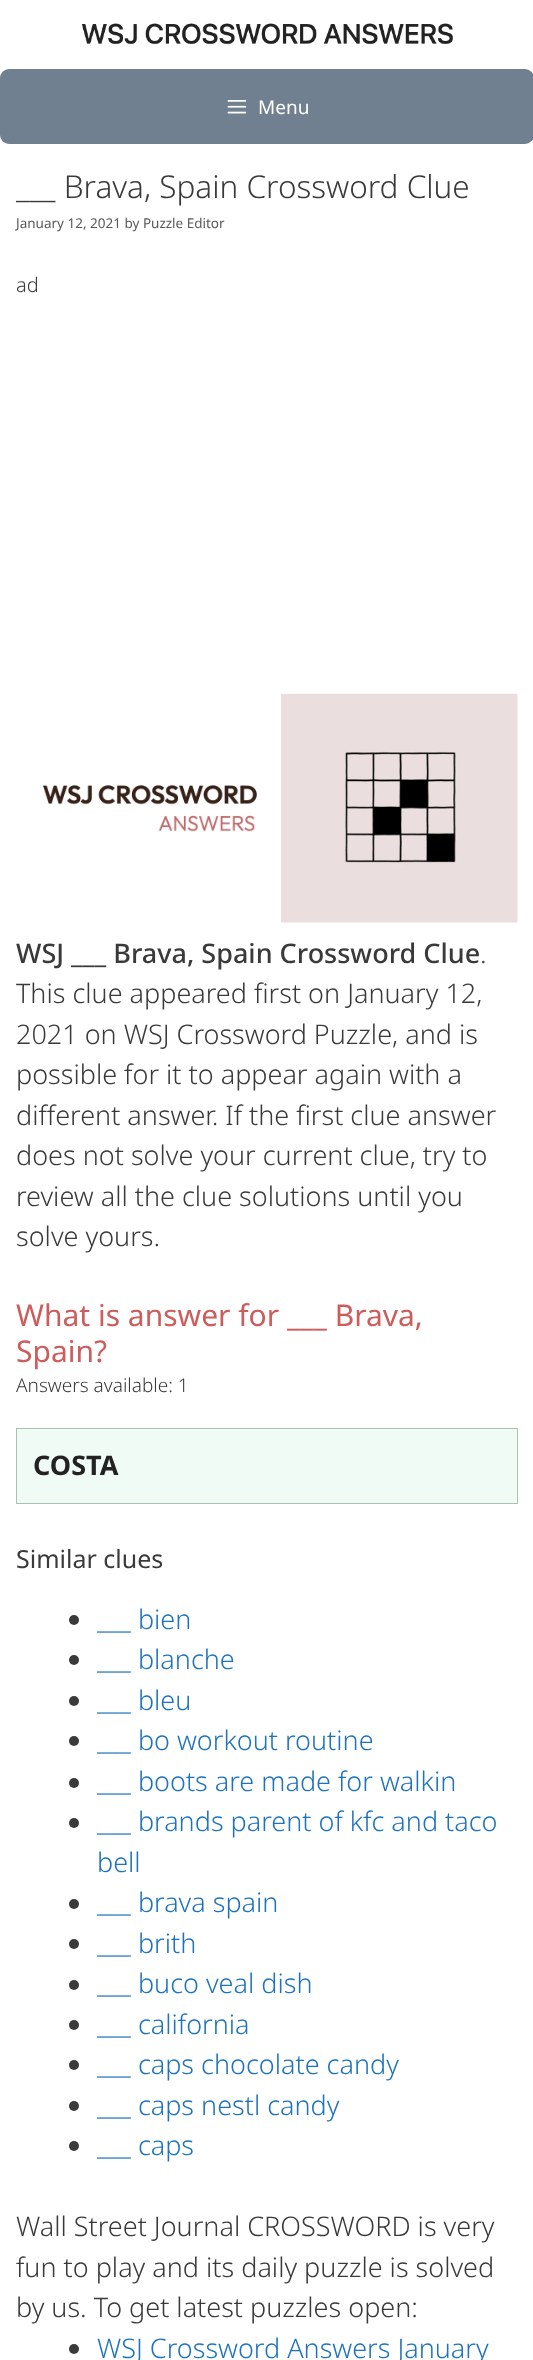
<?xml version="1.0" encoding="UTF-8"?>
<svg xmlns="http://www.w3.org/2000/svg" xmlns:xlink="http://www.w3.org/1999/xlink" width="533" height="2360">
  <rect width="100%" height="100%" fill="#ffffff" />
  <image x="81" y="23" width="372" height="22" xlink:href="image1.png" />
  <rect y="69" width="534" height="75" rx="9" fill="#708090" />
  <image x="227" y="100" width="20" height="14" xlink:href="image2.png" />
  <image x="43" y="693" width="475" height="230" xlink:href="image3.png" />
  <rect x="16.5" y="1428.5" width="501" height="75" fill="#f1fbf5" stroke="#a8c3b1" />
  <circle cx="74" cy="1620" r="5" fill="#3a3a3a" />
  <circle cx="74" cy="1660" r="5" fill="#3a3a3a" />
  <circle cx="74" cy="1701" r="5" fill="#3a3a3a" />
  <circle cx="74" cy="1741" r="5" fill="#3a3a3a" />
  <circle cx="74" cy="1783" r="5" fill="#3a3a3a" />
  <circle cx="74" cy="1823" r="5" fill="#3a3a3a" />
  <circle cx="74" cy="1904" r="5" fill="#3a3a3a" />
  <circle cx="74" cy="1944" r="5" fill="#3a3a3a" />
  <circle cx="74" cy="1985" r="5" fill="#3a3a3a" />
  <circle cx="74" cy="2025" r="5" fill="#3a3a3a" />
  <circle cx="74" cy="2065" r="5" fill="#3a3a3a" />
  <circle cx="74" cy="2106" r="5" fill="#3a3a3a" />
  <circle cx="74" cy="2146" r="5" fill="#3a3a3a" />
  <circle cx="74" cy="2349" r="5" fill="#3a3a3a" />
  <text x="258" y="114" style="font-family: Noto Sans; font-size: 19px; fill: #ffffff">Menu</text>
  <text x="16" y="198" style="font-family: Noto Sans; font-size: 31.5px; font-weight: 300; fill: #3a3a3a">___ Brava, Spain Crossword Clue</text>
  <text x="16" y="228" style="font-family: Noto Sans; font-size: 13.5px; fill: #595959">January 12, 2021 by Puzzle Editor</text>
  <text x="16" y="292" style="font-family: Noto Sans; font-size: 20px; font-weight: 300; fill: #3a3a3a">ad</text>
  <text x="16" y="963" style="font-family: Noto Sans; font-size: 27px; font-weight: 500; fill: #3a3a3a">WSJ ___ Brava, Spain Crossword Clue</text>
  <text x="480" y="963" style="font-family: Noto Sans; font-size: 27px; font-weight: 300; fill: #3a3a3a">.</text>
  <text x="16" y="1003" style="font-family: Noto Sans; font-size: 27px; font-weight: 300; fill: #3a3a3a">This clue appeared first on January 12,</text>
  <text x="16" y="1044" style="font-family: Noto Sans; font-size: 27px; font-weight: 300; fill: #3a3a3a">2021 on WSJ Crossword Puzzle, and is</text>
  <text x="16" y="1084" style="font-family: Noto Sans; font-size: 27px; font-weight: 300; fill: #3a3a3a">possible for it to appear again with a</text>
  <text x="16" y="1125" style="font-family: Noto Sans; font-size: 27px; font-weight: 300; fill: #3a3a3a">different answer. If the first clue answer</text>
  <text x="16" y="1165" style="font-family: Noto Sans; font-size: 27px; font-weight: 300; fill: #3a3a3a">does not solve your current clue, try to</text>
  <text x="16" y="1206" style="font-family: Noto Sans; font-size: 27px; font-weight: 300; fill: #3a3a3a">review all the clue solutions until you</text>
  <text x="16" y="1246" style="font-family: Noto Sans; font-size: 27px; font-weight: 300; fill: #3a3a3a">solve yours.</text>
  <text x="16" y="1326" style="font-family: Noto Sans; font-size: 30px; fill: #cd5c5c">What is answer for ___ Brava,</text>
  <text x="16" y="1362" style="font-family: Noto Sans; font-size: 30px; fill: #cd5c5c">Spain?</text>
  <text x="16" y="1392" style="font-family: Noto Sans; font-size: 19px; font-weight: 300; fill: #3a3a3a">Answers available: 1</text>
  <text x="33" y="1475" style="font-family: Noto Sans; font-size: 27px; font-weight: bold; fill: #222222">COSTA</text>
  <text x="16" y="1568" style="font-family: Noto Sans; font-size: 25px; fill: #3a3a3a">Similar clues</text>
  <text x="97" y="1629" style="font-family: Noto Sans; font-size: 27px; font-weight: 300; fill: #1e73be">___ bien</text>
  <text x="97" y="1669" style="font-family: Noto Sans; font-size: 27px; font-weight: 300; fill: #1e73be">___ blanche</text>
  <text x="97" y="1710" style="font-family: Noto Sans; font-size: 27px; font-weight: 300; fill: #1e73be">___ bleu</text>
  <text x="97" y="1750" style="font-family: Noto Sans; font-size: 27px; font-weight: 300; fill: #1e73be">___ bo workout routine</text>
  <text x="97" y="1791" style="font-family: Noto Sans; font-size: 27px; font-weight: 300; fill: #1e73be">___ boots are made for walkin</text>
  <text x="97" y="1831" style="font-family: Noto Sans; font-size: 27px; font-weight: 300; fill: #1e73be">___ brands parent of kfc and taco</text>
  <text x="97" y="1872" style="font-family: Noto Sans; font-size: 27px; font-weight: 300; fill: #1e73be">bell</text>
  <text x="97" y="1912" style="font-family: Noto Sans; font-size: 27px; font-weight: 300; fill: #1e73be">___ brava spain</text>
  <text x="97" y="1953" style="font-family: Noto Sans; font-size: 27px; font-weight: 300; fill: #1e73be">___ brith</text>
  <text x="97" y="1993" style="font-family: Noto Sans; font-size: 27px; font-weight: 300; fill: #1e73be">___ buco veal dish</text>
  <text x="97" y="2034" style="font-family: Noto Sans; font-size: 27px; font-weight: 300; fill: #1e73be">___ california</text>
  <text x="97" y="2074" style="font-family: Noto Sans; font-size: 27px; font-weight: 300; fill: #1e73be">___ caps chocolate candy</text>
  <text x="97" y="2115" style="font-family: Noto Sans; font-size: 27px; font-weight: 300; fill: #1e73be">___ caps nestl candy</text>
  <text x="97" y="2155" style="font-family: Noto Sans; font-size: 27px; font-weight: 300; fill: #1e73be">___ caps</text>
  <text x="16" y="2236" style="font-family: Noto Sans; font-size: 27px; font-weight: 300; fill: #3a3a3a">Wall Street Journal CROSSWORD is very</text>
  <text x="16" y="2277" style="font-family: Noto Sans; font-size: 27px; font-weight: 300; fill: #3a3a3a">fun to play and its daily puzzle is solved</text>
  <text x="16" y="2317" style="font-family: Noto Sans; font-size: 27px; font-weight: 300; fill: #3a3a3a">by us. To get latest puzzles open:</text>
  <text x="97" y="2358" style="font-family: Noto Sans; font-size: 27px; font-weight: 300; fill: #1e73be">WSJ Crossword Answers January</text>
</svg>
